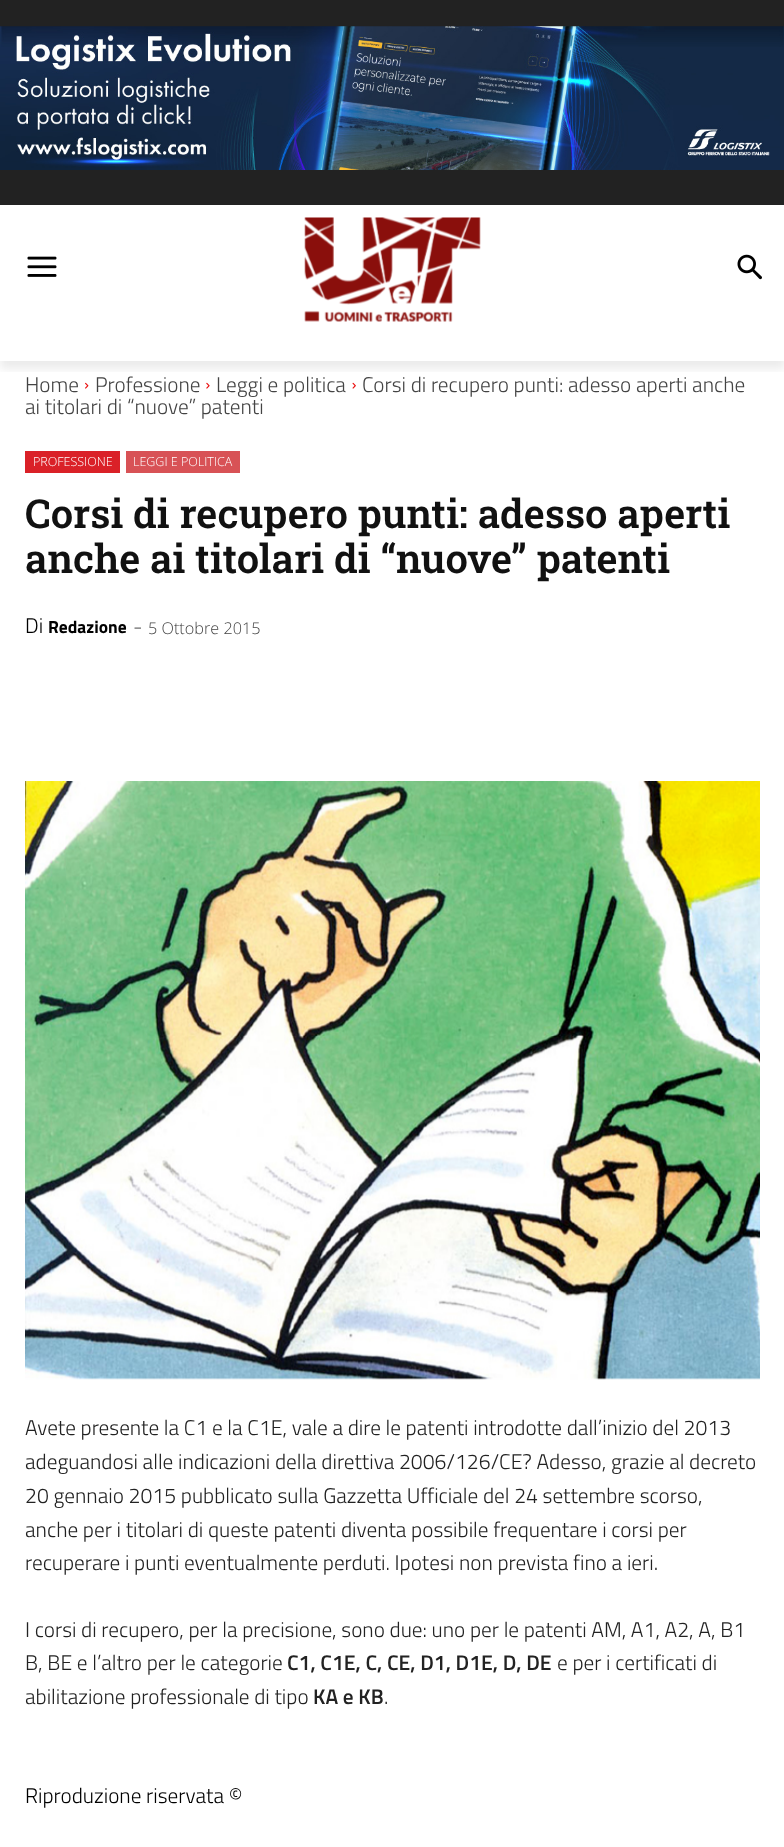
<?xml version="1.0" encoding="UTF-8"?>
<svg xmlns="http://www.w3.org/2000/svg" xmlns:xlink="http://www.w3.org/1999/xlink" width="784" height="1847">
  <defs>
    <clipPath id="clip1"><rect x="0" y="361" width="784" height="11" /></clipPath>
  </defs>
  <rect width="100%" height="100%" fill="#ffffff" />
  <rect width="784" height="205" fill="#222222" />
  <image x="0" y="26" width="784" height="144" xlink:href="image1.png" />
  <image x="27" y="256" width="30" height="21" xlink:href="image2.png" />
  <image x="304" y="217" width="177" height="105" xlink:href="image3.png" />
  <image x="737" y="254" width="25" height="26" xlink:href="image4.png" />
  <image x="85" y="382" width="4" height="7" xlink:href="image5.png" />
  <image x="206" y="382" width="4" height="7" xlink:href="image6.png" />
  <image x="352" y="382" width="4" height="7" xlink:href="image7.png" />
  <g clip-path="url(#clip1)">
    <rect y="8" width="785" height="361" fill="#000000" fill-opacity="0.08" filter="blur(5px)" />
  </g>
  <rect x="25" y="451" width="95" height="22" fill="#da2128" />
  <rect x="126" y="451" width="114" height="22" fill="#d85256" />
  <image x="25" y="781" width="735" height="599" xlink:href="image8.png" />
  <text x="25" y="392" style="font-family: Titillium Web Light; font-size: 21.25px; font-weight: 300; fill: #444444">Home</text>
  <text x="95" y="392" style="font-family: Titillium Web Light; font-size: 21.25px; font-weight: 300; fill: #444444">Professione</text>
  <text x="216" y="392" style="font-family: Titillium Web Light; font-size: 21.25px; font-weight: 300; fill: #444444">Leggi e politica</text>
  <text x="362" y="392" style="font-family: Titillium Web Light; font-size: 21.25px; font-weight: 300; fill: #444444">Corsi di recupero punti: adesso aperti anche</text>
  <text x="25" y="414" style="font-family: Titillium Web Light; font-size: 21.25px; font-weight: 300; fill: #444444">ai titolari di “nuove” patenti</text>
  <text x="33" y="466" style="font-family: Open Sans; font-size: 12.5px; font-weight: 300; fill: #ffffff">PROFESSIONE</text>
  <text x="133" y="466" style="font-family: Open Sans; font-size: 12.5px; font-weight: 300; fill: #ffffff">LEGGI E POLITICA</text>
  <text x="25" y="528" style="font-family: Roboto Slab; font-size: 40px; font-weight: 600; fill: #111111">Corsi di recupero punti: adesso aperti</text>
  <text x="25" y="573" style="font-family: Roboto Slab; font-size: 40px; font-weight: 600; fill: #111111">anche ai titolari di “nuove” patenti</text>
  <text x="25" y="633" style="font-family: Titillium Web Light; font-size: 21.25px; font-weight: 300; fill: #000000">Di</text>
  <text x="48" y="633" style="font-family: Titillium Web; font-size: 17.5px; font-weight: bold; fill: #000000">Redazione</text>
  <text x="133" y="634" style="font-family: Titillium Web Light; font-size: 21.25px; font-weight: 300; fill: #666666">-</text>
  <text x="148" y="634" style="font-family: Open Sans; font-size: 16.25px; font-weight: 300; fill: #444444">5 Ottobre 2015</text>
  <text x="25" y="1435" style="font-family: Titillium Web Light; font-size: 21.25px; font-weight: 300; fill: #222222">Avete presente la C1 e la C1E, vale a dire le patenti introdotte dall’inizio del 2013</text>
  <text x="25" y="1469" style="font-family: Titillium Web Light; font-size: 21.25px; font-weight: 300; fill: #222222">adeguandosi alle indicazioni della direttiva 2006/126/CE? Adesso, grazie al decreto</text>
  <text x="25" y="1503" style="font-family: Titillium Web Light; font-size: 21.25px; font-weight: 300; fill: #222222">20 gennaio 2015 pubblicato sulla Gazzetta Ufficiale del 24 settembre scorso,</text>
  <text x="25" y="1537" style="font-family: Titillium Web Light; font-size: 21.25px; font-weight: 300; fill: #222222">anche per i titolari di queste patenti diventa possibile frequentare i corsi per</text>
  <text x="25" y="1570" style="font-family: Titillium Web Light; font-size: 21.25px; font-weight: 300; fill: #222222">recuperare i punti eventualmente perduti. Ipotesi non prevista fino a ieri.</text>
  <text x="25" y="1637" style="font-family: Titillium Web Light; font-size: 21.25px; font-weight: 300; fill: #222222">I corsi di recupero, per la precisione, sono due: uno per le patenti AM, A1, A2, A, B1</text>
  <text x="25" y="1670" style="font-family: Titillium Web Light; font-size: 21.25px; font-weight: 300; fill: #222222">B, BE e l’altro per le categorie</text>
  <text x="287" y="1670" style="font-family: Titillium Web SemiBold; font-size: 21.25px; font-weight: 600; fill: #222222">C1, C1E, C, CE, D1, D1E, D, DE</text>
  <text x="557" y="1670" style="font-family: Titillium Web Light; font-size: 21.25px; font-weight: 300; fill: #222222">e per i certificati di</text>
  <text x="25" y="1704" style="font-family: Titillium Web Light; font-size: 21.25px; font-weight: 300; fill: #222222">abilitazione professionale di tipo</text>
  <text x="313" y="1704" style="font-family: Titillium Web SemiBold; font-size: 21.25px; font-weight: 600; fill: #222222">KA e KB</text>
  <text x="384" y="1704" style="font-family: Titillium Web Light; font-size: 21.25px; font-weight: 300; fill: #222222">.</text>
  <text x="25" y="1803" style="font-family: Titillium Web Light; font-size: 21.25px; font-weight: 300; fill: #000000">Riproduzione riservata ©</text>
</svg>
